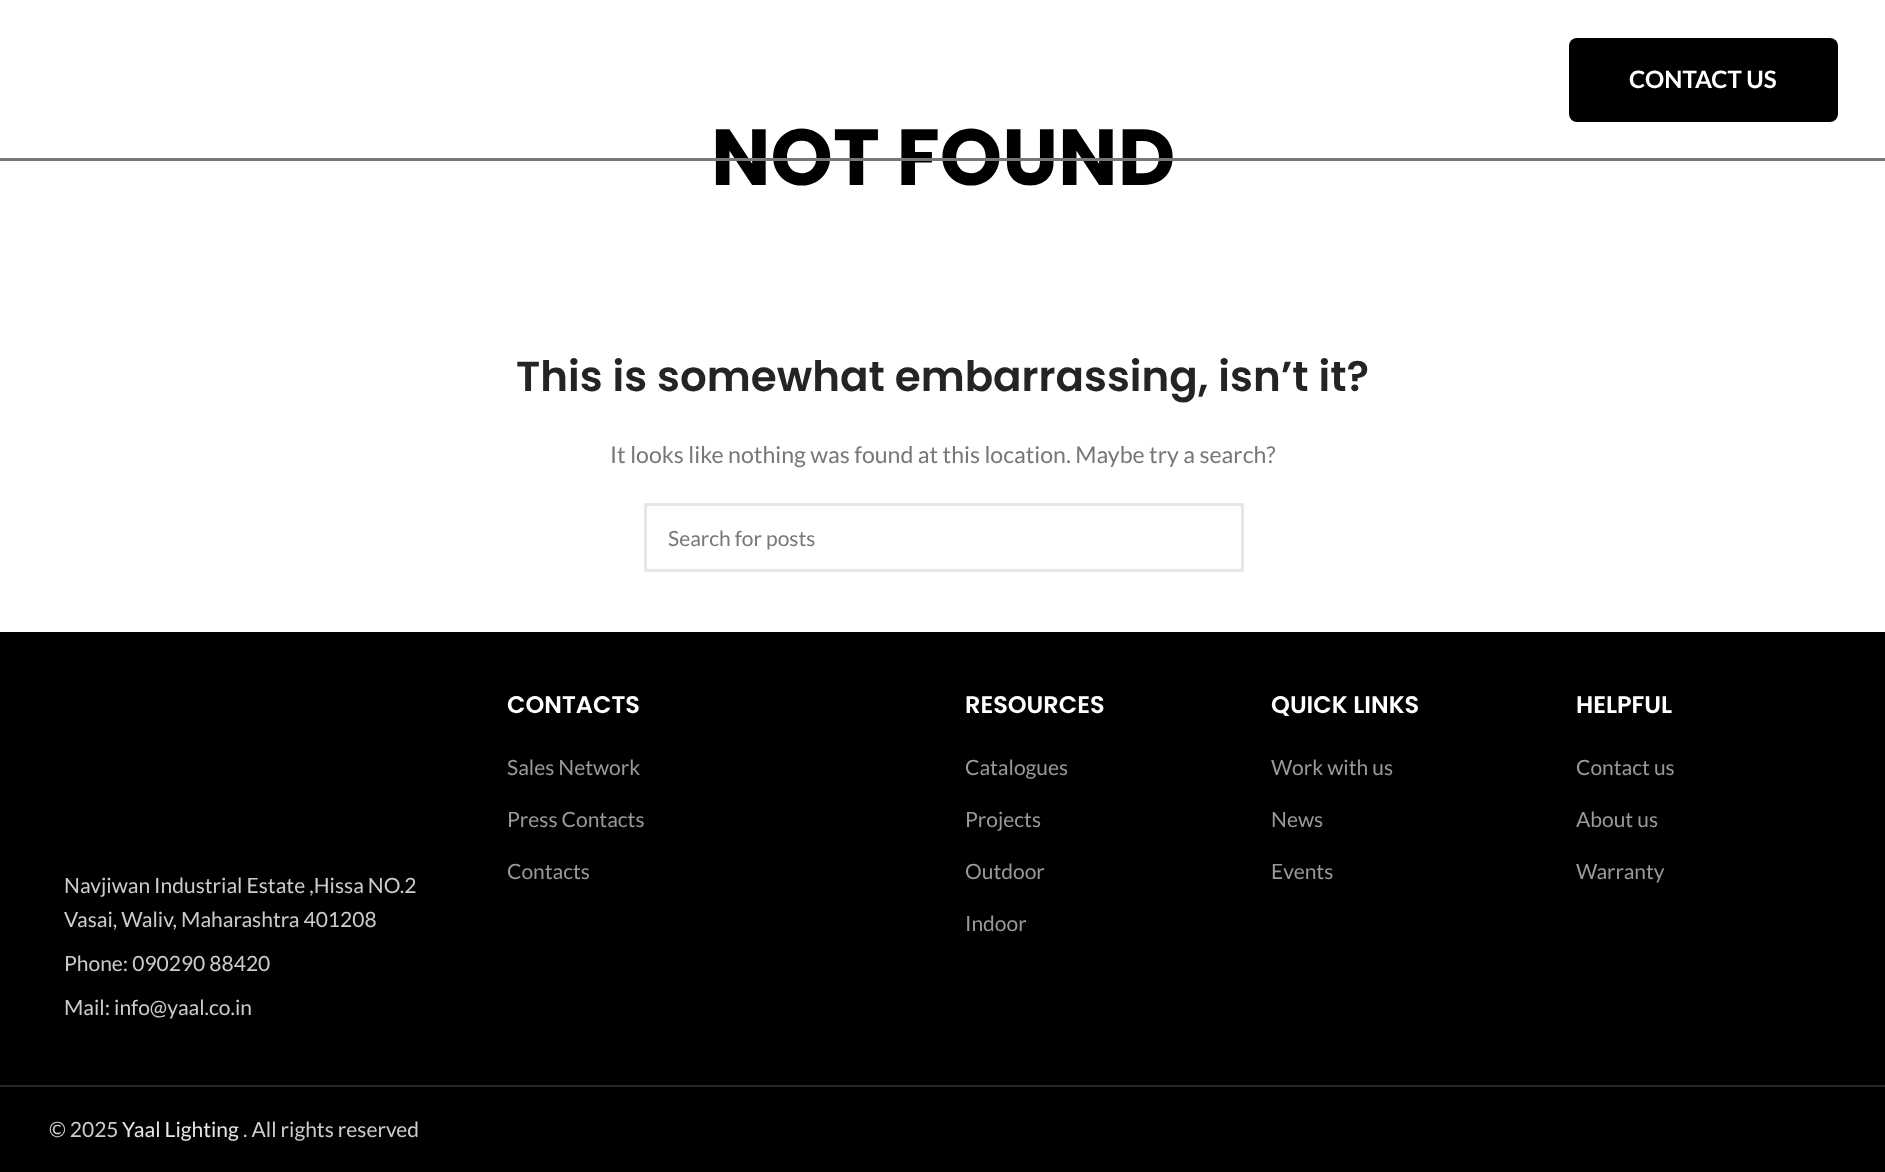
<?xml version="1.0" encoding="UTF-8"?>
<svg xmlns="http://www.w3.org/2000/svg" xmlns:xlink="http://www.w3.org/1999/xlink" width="1885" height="1172">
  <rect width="100%" height="100%" fill="#000000" />
  <rect width="1885" height="632" fill="#ffffff" />
  <rect x="1569" y="38" width="269" height="84" rx="8" fill="#000000" />
  <rect x="645.5" y="504.5" width="597" height="66" fill="none" stroke="#e6e6e6" stroke-width="3" />
  <rect y="1085" width="1885" height="2" fill="#262626" />
  <text x="1629" y="88" style="font-family: Lato; font-size: 24px; font-weight: bold; fill: #ffffff">CONTACT US</text>
  <text x="711" y="185" style="font-family: Poppins; font-size: 79.25px; font-weight: bold; fill: #000000">NOT FOUND</text>
  <rect y="158" width="1885" height="3" fill="#777777" />
  <text x="516" y="391" style="font-family: Poppins; font-size: 42px; font-weight: 600; fill: #242424">This is somewhat embarrassing, isn’t it?</text>
  <text x="610" y="463" style="font-family: Lato; font-size: 23.1px; fill: #777777">It looks like nothing was found at this location. Maybe try a search?</text>
  <text x="668" y="546" style="font-family: Lato; font-size: 21px; fill: #777777">Search for posts</text>
  <text x="507" y="713" style="font-family: Poppins; font-size: 24px; font-weight: 600; fill: #ffffff">CONTACTS</text>
  <text x="507" y="775" style="font-family: Lato; font-size: 21px; fill: #999999">Sales Network</text>
  <text x="507" y="827" style="font-family: Lato; font-size: 21px; fill: #999999">Press Contacts</text>
  <text x="507" y="879" style="font-family: Lato; font-size: 21px; fill: #999999">Contacts</text>
  <text x="965" y="713" style="font-family: Poppins; font-size: 24px; font-weight: 600; fill: #ffffff">RESOURCES</text>
  <text x="965" y="775" style="font-family: Lato; font-size: 21px; fill: #999999">Catalogues</text>
  <text x="965" y="827" style="font-family: Lato; font-size: 21px; fill: #999999">Projects</text>
  <text x="965" y="879" style="font-family: Lato; font-size: 21px; fill: #999999">Outdoor</text>
  <text x="965" y="931" style="font-family: Lato; font-size: 21px; fill: #999999">Indoor</text>
  <text x="1271" y="713" style="font-family: Poppins; font-size: 24px; font-weight: 600; fill: #ffffff">QUICK LINKS</text>
  <text x="1271" y="775" style="font-family: Lato; font-size: 21px; fill: #999999">Work with us</text>
  <text x="1271" y="827" style="font-family: Lato; font-size: 21px; fill: #999999">News</text>
  <text x="1271" y="879" style="font-family: Lato; font-size: 21px; fill: #999999">Events</text>
  <text x="1576" y="713" style="font-family: Poppins; font-size: 24px; font-weight: 600; fill: #ffffff">HELPFUL</text>
  <text x="1576" y="775" style="font-family: Lato; font-size: 21px; fill: #999999">Contact us</text>
  <text x="1576" y="827" style="font-family: Lato; font-size: 21px; fill: #999999">About us</text>
  <text x="1576" y="879" style="font-family: Lato; font-size: 21px; fill: #999999">Warranty</text>
  <text x="64" y="893" style="font-family: Lato; font-size: 21px; fill: #cccccc">Navjiwan Industrial Estate ,Hissa NO.2</text>
  <text x="64" y="927" style="font-family: Lato; font-size: 21px; fill: #cccccc">Vasai, Waliv, Maharashtra 401208</text>
  <text x="64" y="971" style="font-family: Lato; font-size: 21px; fill: #cccccc">Phone: 090290 88420</text>
  <text x="64" y="1015" style="font-family: Lato; font-size: 21px; fill: #cccccc">Mail: info@yaal.co.in</text>
  <text x="49" y="1137" style="font-family: Lato; font-size: 21px; fill: #cccccc">© 2025</text>
  <text x="122" y="1137" style="font-family: Lato; font-size: 21px; fill: #e6e6e6">Yaal Lighting</text>
  <text x="243" y="1137" style="font-family: Lato; font-size: 21px; fill: #cccccc">. All rights reserved</text>
</svg>
